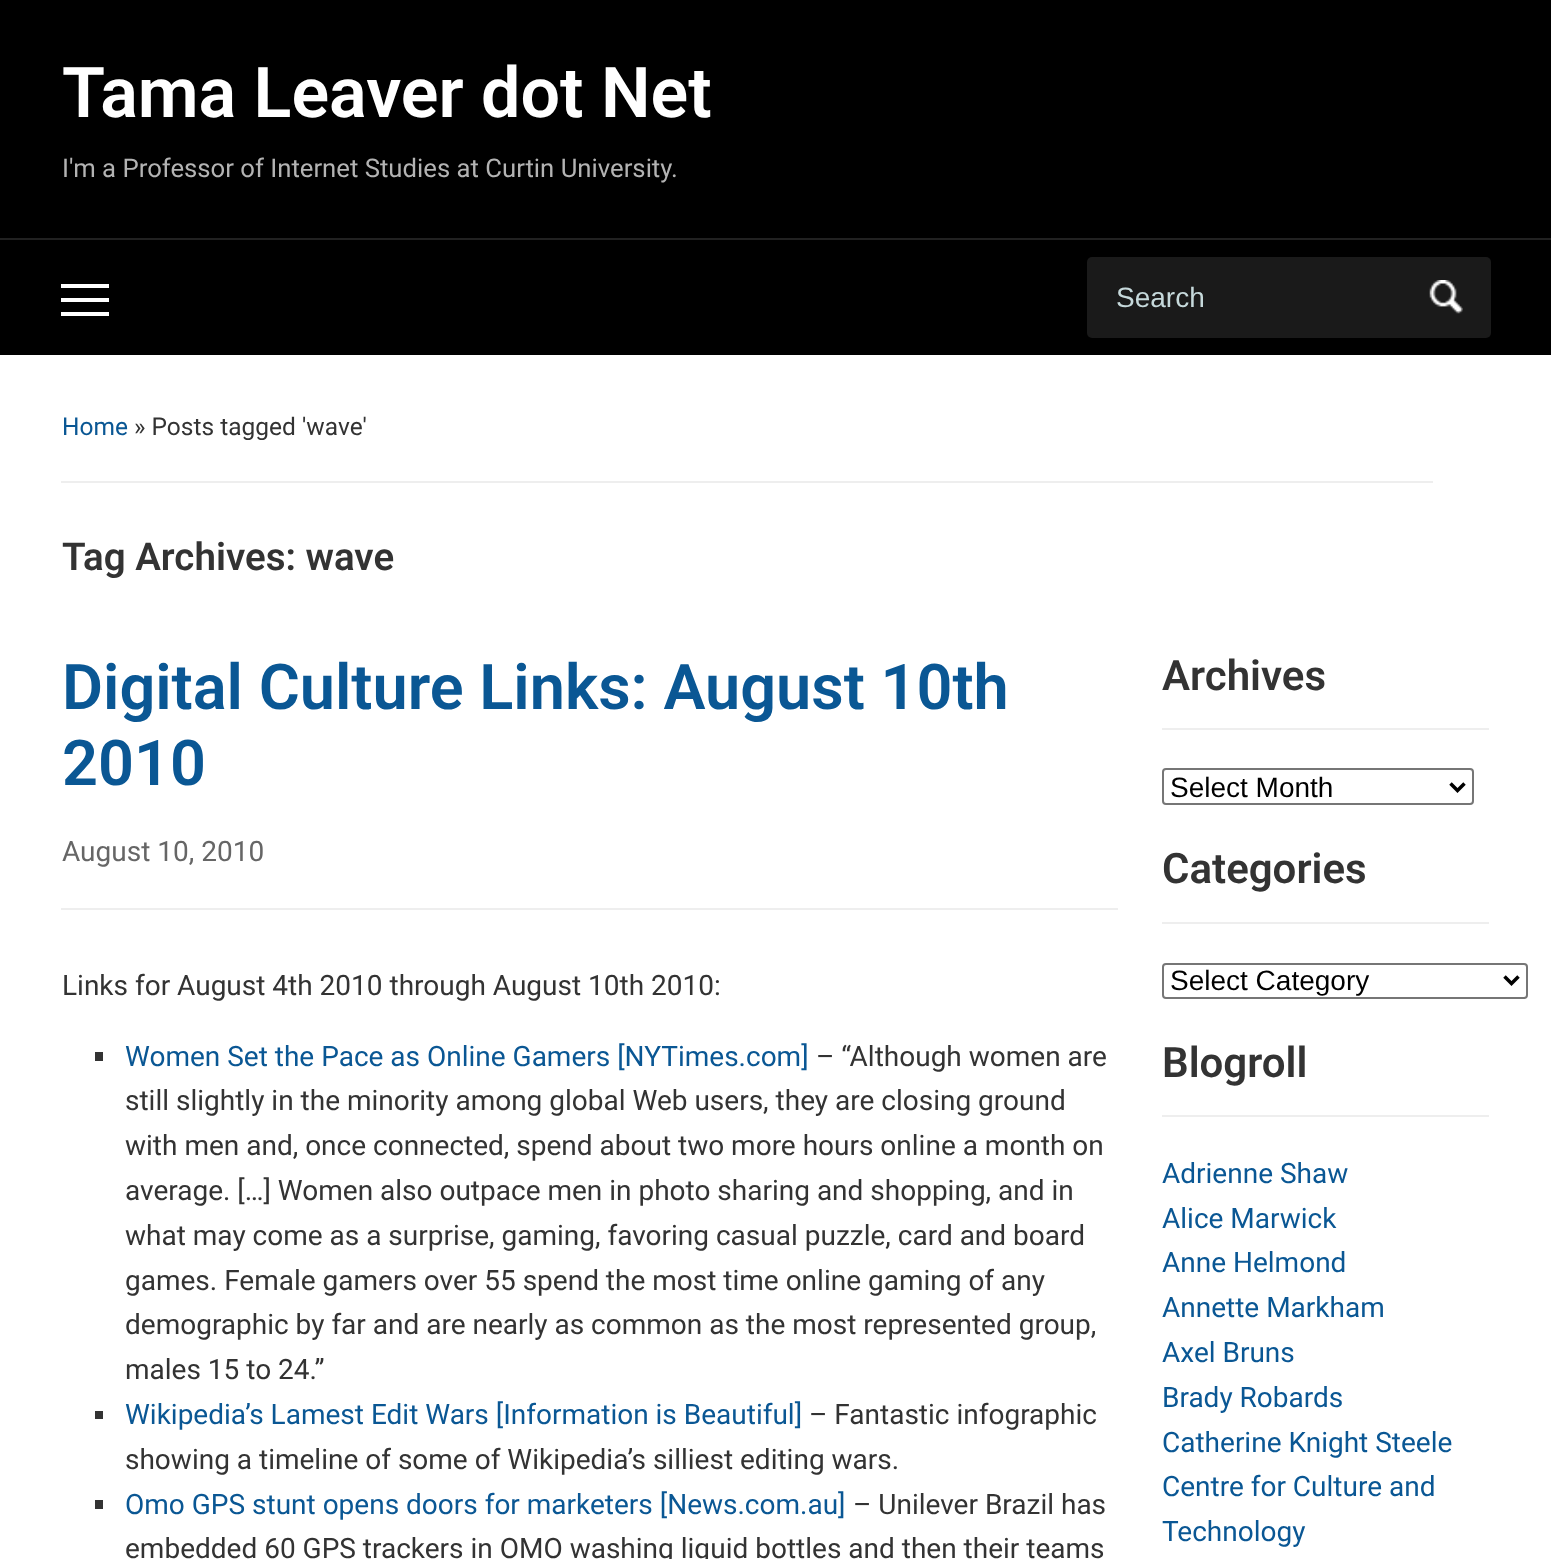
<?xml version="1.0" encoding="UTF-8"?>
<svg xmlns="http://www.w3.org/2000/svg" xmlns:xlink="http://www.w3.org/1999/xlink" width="1551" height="1559">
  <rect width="100%" height="100%" fill="#ffffff" />
  <rect width="1551" height="355" fill="#000000" />
  <rect y="238" width="1551" height="2" fill="#212121" />
  <rect x="61" y="284" width="48" height="4" fill="#ffffff" />
  <rect x="61" y="298" width="48" height="4" fill="#ffffff" />
  <rect x="61" y="312" width="48" height="4" fill="#ffffff" />
  <rect x="1087" y="257" width="404" height="81" rx="5" fill="#1a1a1a" />
  <image x="1429" y="280" width="34" height="34" xlink:href="image1.png" />
  <rect x="61" y="481" width="1372" height="2" fill="#eeeeee" />
  <rect x="61" y="908" width="1057" height="2" fill="#eeeeee" />
  <rect x="95" y="1052" width="8" height="9" fill="#333333" />
  <rect x="95" y="1411" width="8" height="8" fill="#333333" />
  <rect x="95" y="1500" width="8" height="9" fill="#333333" />
  <rect x="1162" y="728" width="327" height="2" fill="#eeeeee" />
  <rect x="1163" y="769" width="310" height="35" rx="3" fill="none" stroke="#767676" stroke-width="2" />
  <path d="M 1450.5 783.5 l 7 7 l 7 -7" fill="none" stroke="#000000" stroke-width="3.5" />
  <rect x="1162" y="922" width="327" height="2" fill="#eeeeee" />
  <rect x="1163" y="964" width="364" height="34" rx="3" fill="none" stroke="#767676" stroke-width="2" />
  <path d="M 1504.5 976.5 l 7 7 l 7 -7" fill="none" stroke="#000000" stroke-width="3.5" />
  <rect x="1162" y="1115" width="327" height="2" fill="#eeeeee" />
  <text x="62" y="117" style="font-family: Roboto; font-size: 70px; font-weight: 600; fill: #ffffff">Tama Leaver dot Net</text>
  <text x="62" y="177" style="font-family: Roboto; font-size: 25.7px; fill: #b3b3b3">I'm a Professor of Internet Studies at Curtin University.</text>
  <text x="1116" y="307" style="font-family: Liberation Sans; font-size: 28px; fill: #c6d9db">Search</text>
  <text x="62" y="435" style="font-family: Roboto; font-size: 24.5px; fill: #0a5794">Home</text>
  <text x="134" y="435" style="font-family: Roboto; font-size: 24.5px; fill: #333333">» Posts tagged 'wave'</text>
  <text x="62" y="570" style="font-family: Roboto; font-size: 38.5px; font-weight: 600; fill: #333333">Tag Archives: wave</text>
  <text x="62" y="709" style="font-family: Roboto; font-size: 63px; font-weight: 600; fill: #0a5794">Digital Culture Links: August 10th</text>
  <text x="62" y="785" style="font-family: Roboto; font-size: 63px; font-weight: 600; fill: #0a5794">2010</text>
  <text x="62" y="861" style="font-family: Roboto; font-size: 28px; fill: #666666">August 10, 2010</text>
  <text x="62" y="995" style="font-family: Roboto; font-size: 28px; fill: #333333">Links for August 4th 2010 through August 10th 2010:</text>
  <text x="125" y="1066" style="font-family: Roboto; font-size: 28px; fill: #0a5794">Women Set the Pace as Online Gamers [NYTimes.com]</text>
  <text x="816" y="1066" style="font-family: Roboto; font-size: 28px; fill: #333333">– “Although women are</text>
  <text x="125" y="1110" style="font-family: Roboto; font-size: 28px; fill: #333333">still slightly in the minority among global Web users, they are closing ground</text>
  <text x="125" y="1155" style="font-family: Roboto; font-size: 28px; fill: #333333">with men and, once connected, spend about two more hours online a month on</text>
  <text x="125" y="1200" style="font-family: Roboto; font-size: 28px; fill: #333333">average. […] Women also outpace men in photo sharing and shopping, and in</text>
  <text x="125" y="1245" style="font-family: Roboto; font-size: 28px; fill: #333333">what may come as a surprise, gaming, favoring casual puzzle, card and board</text>
  <text x="125" y="1290" style="font-family: Roboto; font-size: 28px; fill: #333333">games. Female gamers over 55 spend the most time online gaming of any</text>
  <text x="125" y="1334" style="font-family: Roboto; font-size: 28px; fill: #333333">demographic by far and are nearly as common as the most represented group,</text>
  <text x="125" y="1379" style="font-family: Roboto; font-size: 28px; fill: #333333">males 15 to 24.”</text>
  <text x="125" y="1424" style="font-family: Roboto; font-size: 28px; fill: #0a5794">Wikipedia’s Lamest Edit Wars [Information is Beautiful]</text>
  <text x="809" y="1424" style="font-family: Roboto; font-size: 28px; fill: #333333">– Fantastic infographic</text>
  <text x="125" y="1469" style="font-family: Roboto; font-size: 28px; fill: #333333">showing a timeline of some of Wikipedia’s silliest editing wars.</text>
  <text x="125" y="1514" style="font-family: Roboto; font-size: 28px; fill: #0a5794">Omo GPS stunt opens doors for marketers [News.com.au]</text>
  <text x="853" y="1514" style="font-family: Roboto; font-size: 28px; fill: #333333">– Unilever Brazil has</text>
  <text x="125" y="1558" style="font-family: Roboto; font-size: 28px; fill: #333333">embedded 60 GPS trackers in OMO washing liquid bottles and then their teams</text>
  <text x="1162" y="690" style="font-family: Roboto; font-size: 42px; font-weight: 600; fill: #333333">Archives</text>
  <text x="1170" y="797" style="font-family: Liberation Sans; font-size: 28px; fill: #000000">Select Month</text>
  <text x="1162" y="883" style="font-family: Roboto; font-size: 42px; font-weight: 600; fill: #333333">Categories</text>
  <text x="1170" y="990" style="font-family: Liberation Sans; font-size: 28px; fill: #000000">Select Category</text>
  <text x="1162" y="1077" style="font-family: Roboto; font-size: 42px; font-weight: 600; fill: #333333">Blogroll</text>
  <text x="1162" y="1183" style="font-family: Roboto; font-size: 28px; fill: #0a5794">Adrienne Shaw</text>
  <text x="1162" y="1228" style="font-family: Roboto; font-size: 28px; fill: #0a5794">Alice Marwick</text>
  <text x="1162" y="1272" style="font-family: Roboto; font-size: 28px; fill: #0a5794">Anne Helmond</text>
  <text x="1162" y="1317" style="font-family: Roboto; font-size: 28px; fill: #0a5794">Annette Markham</text>
  <text x="1162" y="1362" style="font-family: Roboto; font-size: 28px; fill: #0a5794">Axel Bruns</text>
  <text x="1162" y="1407" style="font-family: Roboto; font-size: 28px; fill: #0a5794">Brady Robards</text>
  <text x="1162" y="1452" style="font-family: Roboto; font-size: 28px; fill: #0a5794">Catherine Knight Steele</text>
  <text x="1162" y="1496" style="font-family: Roboto; font-size: 28px; fill: #0a5794">Centre for Culture and</text>
  <text x="1162" y="1541" style="font-family: Roboto; font-size: 28px; fill: #0a5794">Technology</text>
</svg>
